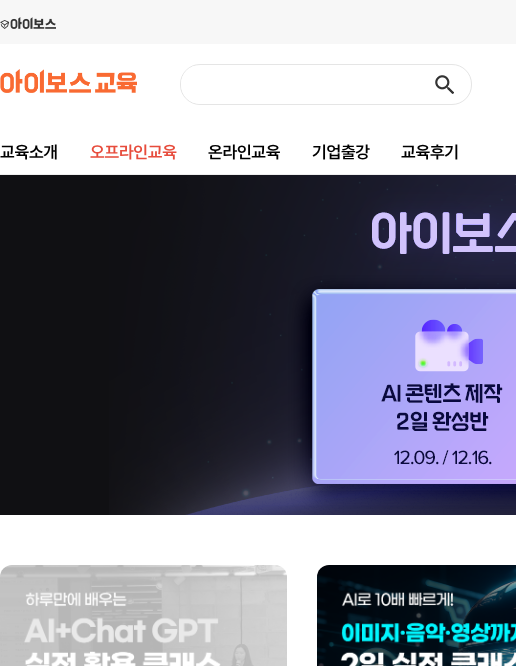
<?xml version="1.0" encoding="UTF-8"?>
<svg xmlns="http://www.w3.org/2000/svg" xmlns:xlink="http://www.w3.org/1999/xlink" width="516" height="666">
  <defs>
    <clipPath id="clip1"><rect x="181" y="65" width="290" height="39" rx="19" /></clipPath>
  </defs>
  <rect width="100%" height="100%" fill="#ffffff" />
  <rect width="516" height="44" fill="#f7f7f7" />
  <image x="0" y="17" width="56" height="12" xlink:href="image1.png" />
  <image x="0" y="69" width="137" height="24" xlink:href="image2.png" />
  <rect x="180.5" y="64.5" width="291" height="40" rx="19.5" fill="none" stroke="#e5e5e5" />
  <g clip-path="url(#clip1)">
    <path d="M 181 66 h 242 v 38 h -223 c -10.5 0 -19 -8.5 -19 -19 z" fill="#ffffff" />
  </g>
  <image x="435" y="75" width="19" height="19" xlink:href="image3.png" />
  <rect y="174" width="516" height="1" fill="#eeeeee" />
  <rect y="175" width="109" height="340" fill="#101013" />
  <image x="109" y="175" width="407" height="340" xlink:href="image4.png" />
  <image x="0" y="565" width="287" height="101" xlink:href="image5.png" />
  <image x="317" y="565" width="199" height="101" xlink:href="image6.png" />
  <text x="0" y="158" style="font-family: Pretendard; font-size: 17px; font-weight: 600; letter-spacing: -0.25px; fill: #000000">교육소개</text>
  <text x="90" y="158" style="font-family: Pretendard; font-size: 17px; font-weight: 600; letter-spacing: -0.25px; fill: #e74c3c">오프라인교육</text>
  <text x="208" y="158" style="font-family: Pretendard; font-size: 17px; font-weight: 600; letter-spacing: -0.25px; fill: #000000">온라인교육</text>
  <text x="312" y="158" style="font-family: Pretendard; font-size: 17px; font-weight: 600; letter-spacing: -0.25px; fill: #000000">기업출강</text>
  <text x="401" y="158" style="font-family: Pretendard; font-size: 17px; font-weight: 600; letter-spacing: -0.25px; fill: #000000">교육후기</text>
</svg>
